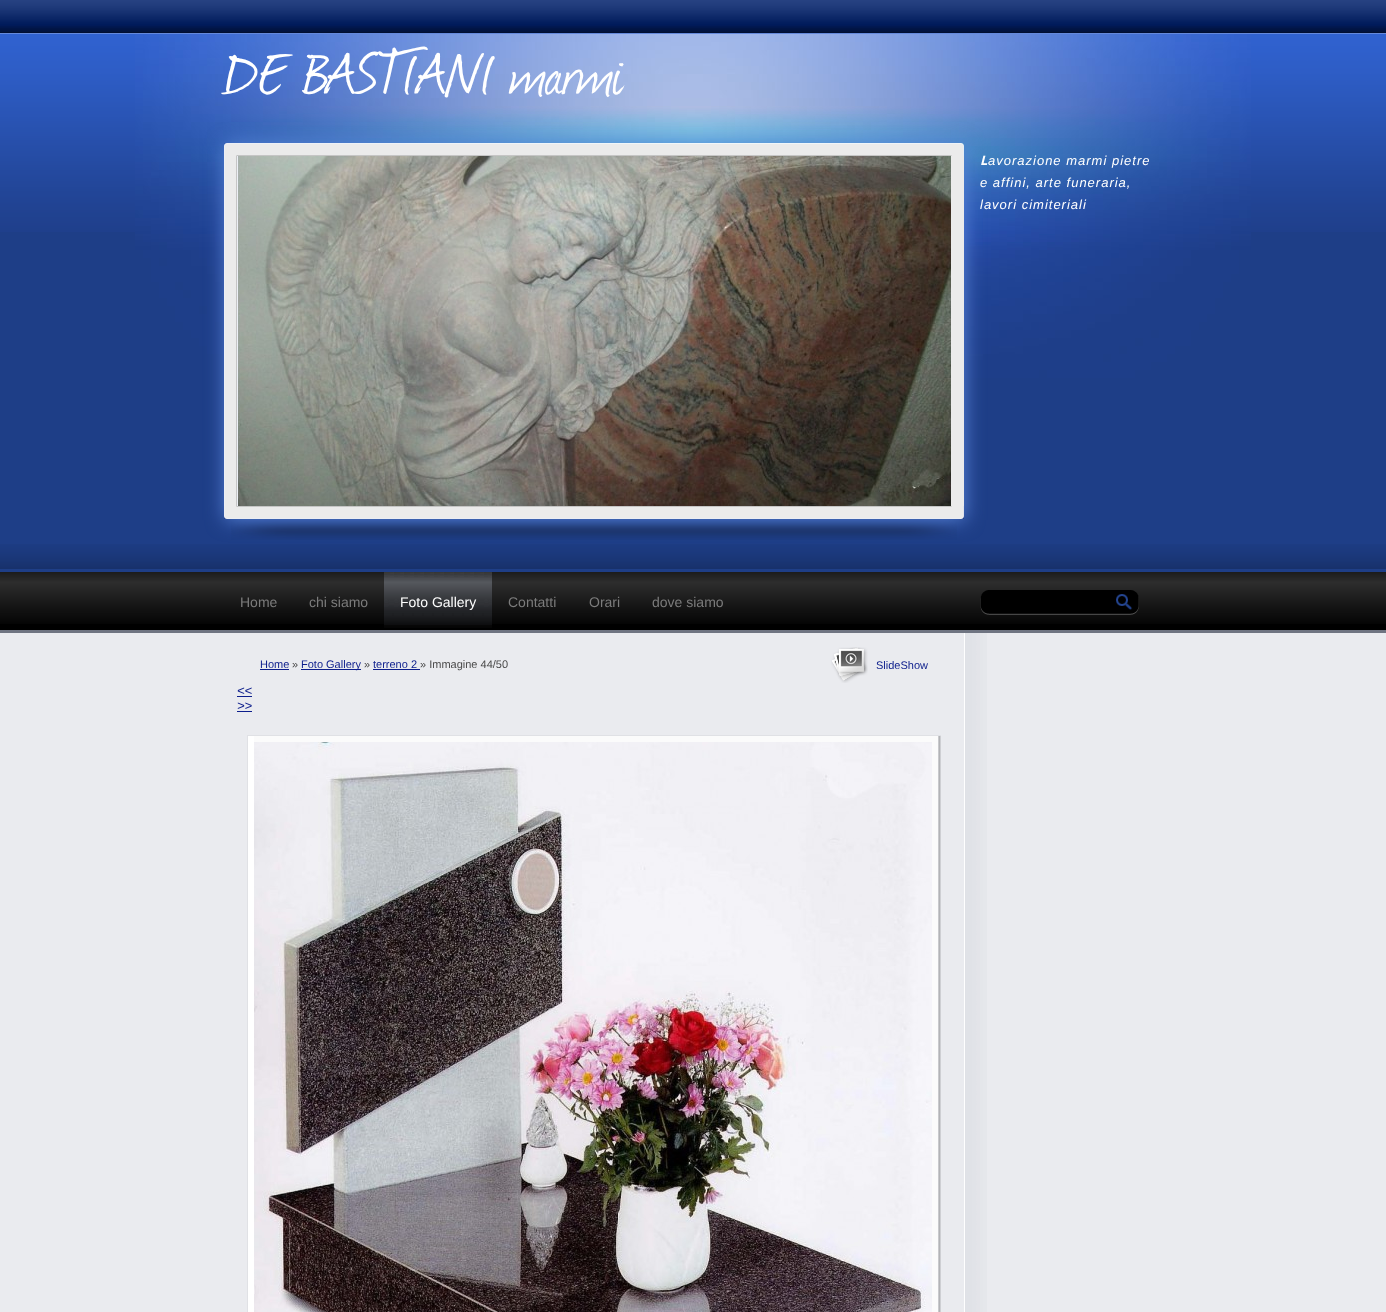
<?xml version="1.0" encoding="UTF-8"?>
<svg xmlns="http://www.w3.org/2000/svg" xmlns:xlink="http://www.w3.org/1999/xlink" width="1386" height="1312">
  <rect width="100%" height="100%" fill="#eaebef" />
  <image x="0" y="0" width="1386" height="34" xlink:href="image1.png" />
  <rect y="232" width="1386" height="340" fill="#1e3e87" />
  <image x="0" y="34" width="1386" height="198" xlink:href="image2.png" />
  <image x="135" y="34" width="1116" height="344" xlink:href="image3.png" />
  <image x="0" y="544" width="1386" height="25" xlink:href="image4.png" />
  <image x="231" y="519" width="726" height="21" xlink:href="image5.png" />
  <rect x="225" y="144" width="740" height="376" fill="#5782d8" filter="blur(9.5px)" />
  <image x="238" y="156" width="713" height="350" xlink:href="image6.png" />
  <image x="224" y="143" width="740" height="13" xlink:href="image7.png" />
  <image x="224" y="156" width="14" height="350" xlink:href="image8.png" />
  <rect x="951" y="156" width="13" height="350" fill="#ebebeb" />
  <image x="224" y="506" width="740" height="13" xlink:href="image9.png" />
  <rect y="630" width="1386" height="3" fill="#6f7481" />
  <rect y="624" width="1386" height="6" fill="#000000" />
  <image x="0" y="572" width="1386" height="52" xlink:href="image10.png" />
  <image x="384" y="572" width="108" height="56" xlink:href="image11.png" />
  <image x="980" y="590" width="159" height="25" xlink:href="image12.png" />
  <image x="964" y="633" width="23" height="679" xlink:href="image13.png" />
  <rect x="260" y="669" width="29" height="1" fill="#0d1e8c" />
  <rect x="301" y="669" width="60" height="1" fill="#0d1e8c" />
  <rect x="373" y="669" width="47" height="1" fill="#0d1e8c" />
  <image x="831" y="647" width="37" height="36" xlink:href="image14.png" />
  <rect x="237" y="696" width="15" height="1" fill="#0d1e8c" />
  <rect x="237" y="711" width="15" height="1" fill="#0d1e8c" />
  <rect x="247" y="735" width="694" height="1" fill="#e0e1e5" />
  <rect x="247" y="735" width="1" height="577" fill="#e0e1e5" />
  <rect x="248" y="736" width="6" height="576" fill="#ffffff" />
  <image x="254" y="736" width="687" height="576" xlink:href="image15.png" />
  <text x="224" y="93" style="font-family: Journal; font-size: 70px; fill: #ffffff">DE BASTIANI marmi</text>
  <text x="980" y="165" style="font-family: Noto Sans; font-size: 13px; font-weight: bold; font-style: italic; letter-spacing: 1px; fill: #ffffff">L</text>
  <text x="988" y="165" style="font-family: Liberation Sans; font-size: 13px; font-style: italic; letter-spacing: 1px; fill: #ffffff">avorazione marmi pietre</text>
  <text x="980" y="187" style="font-family: Liberation Sans; font-size: 13px; font-style: italic; letter-spacing: 1px; fill: #ffffff">e affini, arte funeraria,</text>
  <text x="980" y="209" style="font-family: Liberation Sans; font-size: 13px; font-style: italic; letter-spacing: 1px; fill: #ffffff">lavori cimiteriali</text>
  <text x="240" y="607" style="font-family: Liberation Sans; font-size: 14px; fill: #7c7c7c">Home</text>
  <text x="309" y="607" style="font-family: Liberation Sans; font-size: 14px; fill: #7c7c7c">chi siamo</text>
  <text x="400" y="607" style="font-family: Liberation Sans; font-size: 14px; fill: #ffffff">Foto Gallery</text>
  <text x="508" y="607" style="font-family: Liberation Sans; font-size: 14px; fill: #7c7c7c">Contatti</text>
  <text x="589" y="607" style="font-family: Liberation Sans; font-size: 14px; fill: #7c7c7c">Orari</text>
  <text x="652" y="607" style="font-family: Liberation Sans; font-size: 14px; fill: #7c7c7c">dove siamo</text>
  <text x="260" y="668" style="font-family: Liberation Sans; font-size: 11px; fill: #0d1e8c">Home</text>
  <text x="292" y="668" style="font-family: Liberation Sans; font-size: 11px; fill: #494949">»</text>
  <text x="301" y="668" style="font-family: Liberation Sans; font-size: 11px; fill: #0d1e8c">Foto Gallery</text>
  <text x="364" y="668" style="font-family: Liberation Sans; font-size: 11px; fill: #494949">»</text>
  <text x="373" y="668" style="font-family: Liberation Sans; font-size: 11px; fill: #0d1e8c">terreno 2</text>
  <text x="420" y="668" style="font-family: Liberation Sans; font-size: 11px; fill: #494949">» Immagine 44/50</text>
  <text x="876" y="669" style="font-family: Liberation Sans; font-size: 11px; fill: #0d1e8c">SlideShow</text>
  <text x="237" y="695" style="font-family: Liberation Sans; font-size: 13px; font-style: italic; fill: #0d1e8c">&lt;&lt;</text>
  <text x="237" y="710" style="font-family: Liberation Sans; font-size: 13px; font-style: italic; fill: #0d1e8c">&gt;&gt;</text>
</svg>
